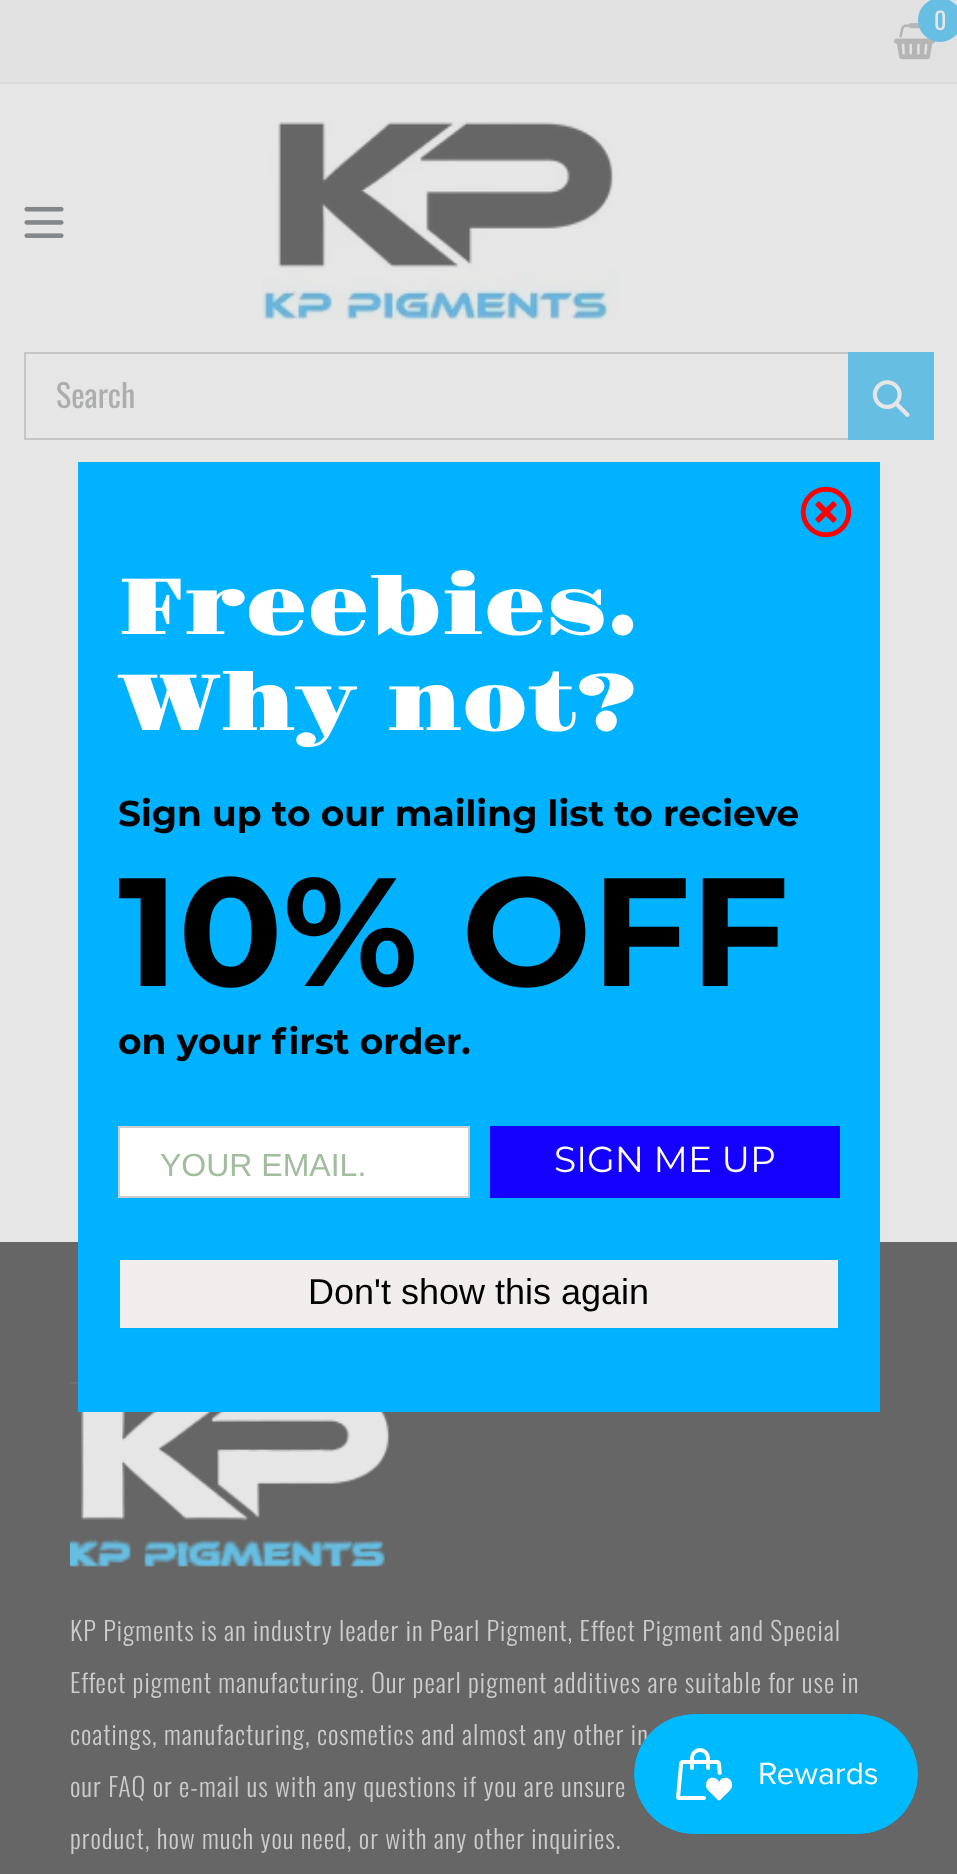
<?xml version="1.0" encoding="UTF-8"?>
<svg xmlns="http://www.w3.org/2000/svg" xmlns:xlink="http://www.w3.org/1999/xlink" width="957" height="1874">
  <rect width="100%" height="100%" fill="#e6e6e6" />
  <rect width="957" height="82" fill="#e1e1e1" />
  <rect y="82" width="957" height="2" fill="#dbdbdb" />
  <image x="894" y="23" width="42" height="37" xlink:href="image1.png" />
  <circle cx="940" cy="20" r="22" fill="#66bee3" />
  <image x="24" y="206" width="40" height="32" xlink:href="image2.png" />
  <image x="262" y="121" width="357" height="199" xlink:href="image3.png" />
  <rect x="25" y="353" width="908" height="86" fill="none" stroke="#c5c5c5" stroke-width="2" />
  <rect x="848" y="352" width="86" height="88" fill="#66bee3" />
  <image x="872" y="380" width="38" height="37" xlink:href="image4.png" />
  <rect y="1242" width="957" height="632" fill="#666666" />
  <image x="70" y="1382" width="320" height="185" xlink:href="image6.png" />
  <rect x="78" y="462" width="802" height="950" fill="#00b2ff" />
  <image x="800" y="486" width="52" height="52" xlink:href="image5.png" />
  <rect x="119" y="1127" width="350" height="70" fill="#ffffff" stroke="#cccccc" stroke-width="2" />
  <rect x="490" y="1126" width="350" height="72" fill="#1400ff" />
  <rect x="119" y="1259" width="720" height="70" fill="#f2eded" stroke="#00b0f9" stroke-width="2" />
  <text x="934" y="30" style="font-family: Oswald; font-size: 24px; fill: #e6e6e6">0</text>
  <text x="56" y="408" style="font-family: Oswald; font-size: 32px; fill: #acadae">Search</text>
  <text x="118" y="634" style="font-family: Gravitas One; font-size: 80px; fill: #ffffff">Freebies.</text>
  <text x="118" y="730" style="font-family: Gravitas One; font-size: 80px; fill: #ffffff">Why not?</text>
  <text x="118" y="826" style="font-family: Montserrat; font-size: 36px; font-weight: bold; fill: #000000">Sign up to our mailing list to recieve</text>
  <text x="118" y="986" style="font-family: Montserrat; font-size: 154px; font-weight: bold; fill: #000000">10% OFF</text>
  <text x="118" y="1054" style="font-family: Montserrat; font-size: 36px; font-weight: bold; fill: #000000">on your first order.</text>
  <text x="160" y="1176" style="font-family: Liberation Sans; font-size: 32px; fill: #a1bd9d">YOUR EMAIL.</text>
  <text x="554" y="1172" style="font-family: Montserrat; font-size: 36px; font-weight: 100; fill: #ffffff">SIGN ME UP</text>
  <text x="308" y="1304" style="font-family: Liberation Sans; font-size: 36px; fill: #000000">Don't show this again</text>
  <text x="70" y="1641" style="font-family: Oswald; font-size: 26px; font-weight: 300; letter-spacing: 1px; fill: #cccccc">KP Pigments is an industry leader in Pearl Pigment, Effect Pigment and Special</text>
  <text x="70" y="1693" style="font-family: Oswald; font-size: 26px; font-weight: 300; letter-spacing: 1px; fill: #cccccc">Effect pigment manufacturing. Our pearl pigment additives are suitable for use in</text>
  <text x="70" y="1745" style="font-family: Oswald; font-size: 26px; font-weight: 300; letter-spacing: 1px; fill: #cccccc">coatings, manufacturing, cosmetics and almost any other in</text>
  <text x="70" y="1797" style="font-family: Oswald; font-size: 26px; font-weight: 300; letter-spacing: 1px; fill: #cccccc">our FAQ or e-mail us with any questions if you are unsure</text>
  <text x="70" y="1849" style="font-family: Oswald; font-size: 26px; font-weight: 300; letter-spacing: 1px; fill: #cccccc">product, how much you need, or with any other inquiries.</text>
  <image x="634" y="1714" width="284" height="120" xlink:href="image7.png" />
</svg>
